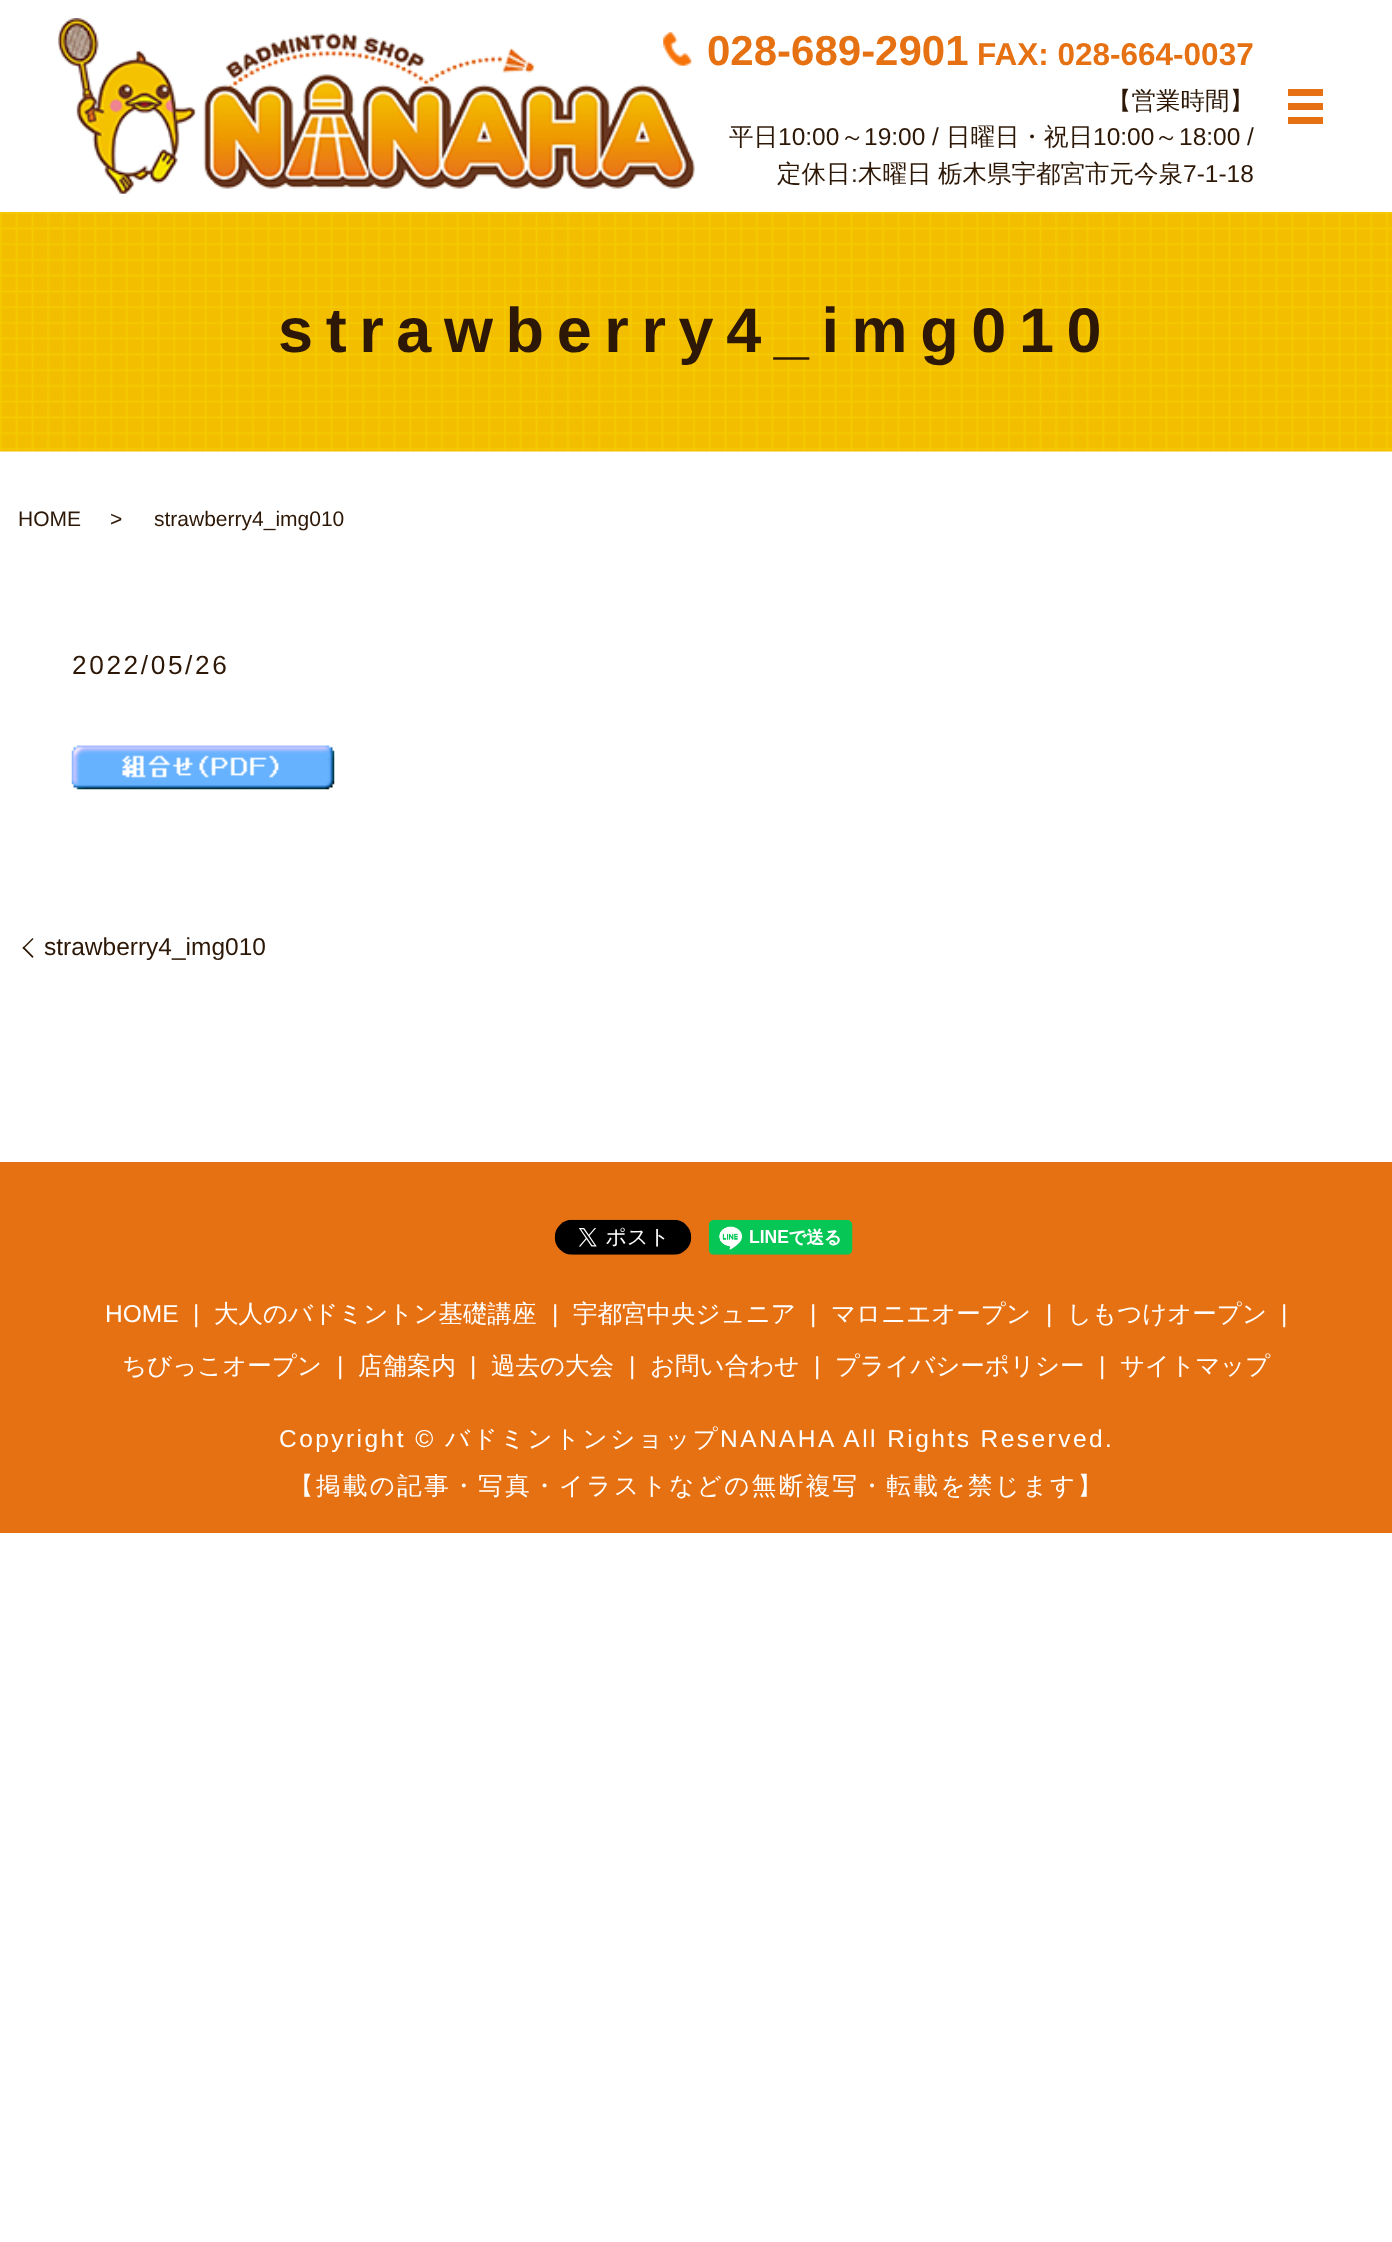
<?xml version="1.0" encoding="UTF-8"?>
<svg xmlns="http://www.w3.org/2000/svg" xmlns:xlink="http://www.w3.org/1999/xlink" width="1392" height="2242">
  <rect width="100%" height="100%" fill="#ffffff" />
  <image x="58" y="18" width="637" height="176" xlink:href="image1.png" />
  <image x="663" y="32" width="29" height="34" xlink:href="image2.png" />
  <rect x="1288" y="89" width="35" height="7" fill="#e67112" />
  <rect x="1288" y="103" width="35" height="7" fill="#e67112" />
  <rect x="1288" y="117" width="35" height="7" fill="#e67112" />
  <image x="0" y="212" width="1392" height="240" xlink:href="image3.png" />
  <image x="71" y="745" width="264" height="45" xlink:href="image4.png" />
  <path d="M 22.5 948 l 10 -10 l 1 1 l -10 10 z" fill="#2d1807" />
  <path d="M 32.5 958 l -10 -10 l 1 -1.5 l 10 10 z" fill="#2d1807" />
  <rect y="1162" width="1392" height="371" fill="#e67112" />
  <image x="554" y="1219" width="138" height="36" xlink:href="image5.png" />
  <image x="708" y="1219" width="145" height="36" xlink:href="image6.png" />
  <text x="707" y="65" style="font-family: Liberation Sans; font-size: 42px; font-weight: bold; fill: #e67112">028-689-2901</text>
  <text x="977" y="65" style="font-family: Liberation Sans; font-size: 31.5px; font-weight: bold; fill: #e67112">FAX: 028-664-0037</text>
  <text x="1107" y="109" style="font-family: WenQuanYi Zen Hei; font-size: 24.5px; font-weight: 500; fill: #2d1807">【営業時間】</text>
  <text x="729" y="145" style="font-family: WenQuanYi Zen Hei; font-size: 24.5px; font-weight: 500; fill: #2d1807">平日</text>
  <text x="778" y="145" style="font-family: Liberation Sans; font-size: 24.5px; fill: #2d1807">10:00</text>
  <text x="840" y="145" style="font-family: WenQuanYi Zen Hei; font-size: 24.5px; font-weight: 500; fill: #2d1807">～</text>
  <text x="864" y="145" style="font-family: Liberation Sans; font-size: 24.5px; fill: #2d1807">19:00 /</text>
  <text x="946" y="145" style="font-family: WenQuanYi Zen Hei; font-size: 24.5px; font-weight: 500; fill: #2d1807">日曜日・祝日</text>
  <text x="1093" y="145" style="font-family: Liberation Sans; font-size: 24.5px; fill: #2d1807">10:00</text>
  <text x="1154" y="145" style="font-family: WenQuanYi Zen Hei; font-size: 24.5px; font-weight: 500; fill: #2d1807">～</text>
  <text x="1179" y="145" style="font-family: Liberation Sans; font-size: 24.5px; fill: #2d1807">18:00 /</text>
  <text x="777" y="182" style="font-family: WenQuanYi Zen Hei; font-size: 24.5px; font-weight: 500; fill: #2d1807">定休日</text>
  <text x="851" y="182" style="font-family: Liberation Sans; font-size: 24.5px; fill: #2d1807">:</text>
  <text x="858" y="182" style="font-family: WenQuanYi Zen Hei; font-size: 24.5px; font-weight: 500; fill: #2d1807">木曜日</text>
  <text x="938" y="182" style="font-family: WenQuanYi Zen Hei; font-size: 24.5px; font-weight: 500; fill: #2d1807">栃木県宇都宮市元今泉</text>
  <text x="1183" y="182" style="font-family: Liberation Sans; font-size: 24.5px; fill: #2d1807">7-1-18</text>
  <text x="278" y="352" style="font-family: Liberation Sans; font-size: 63px; font-weight: bold; letter-spacing: 12.6px; fill: #2d1807">strawberry4_img010</text>
  <text x="18" y="526" style="font-family: Liberation Sans; font-size: 21px; fill: #2d1807">HOME</text>
  <text x="110" y="526" style="font-family: Liberation Sans; font-size: 21px; fill: #2d1807">&gt;</text>
  <text x="154" y="526" style="font-family: Liberation Sans; font-size: 21px; fill: #2d1807">strawberry4_img010</text>
  <text x="72" y="674" style="font-family: Liberation Sans; font-size: 26.25px; letter-spacing: 2.6px; fill: #2d1807">2022/05/26</text>
  <text x="44" y="955" style="font-family: Liberation Sans; font-size: 24.5px; fill: #2d1807">strawberry4_img010</text>
  <text x="105" y="1322" style="font-family: Liberation Sans; font-size: 24.5px; fill: #ffffff">HOME</text>
  <text x="193" y="1322" style="font-family: Liberation Sans; font-size: 24.5px; fill: #ffffff">|</text>
  <text x="214" y="1322" style="font-family: WenQuanYi Zen Hei; font-size: 24.5px; font-weight: 500; fill: #ffffff">大人のバドミントン基礎講座</text>
  <text x="552" y="1322" style="font-family: Liberation Sans; font-size: 24.5px; fill: #ffffff">|</text>
  <text x="573" y="1322" style="font-family: WenQuanYi Zen Hei; font-size: 24.5px; font-weight: 500; fill: #ffffff">宇都宮中央ジュニア</text>
  <text x="810" y="1322" style="font-family: Liberation Sans; font-size: 24.5px; fill: #ffffff">|</text>
  <text x="831" y="1322" style="font-family: WenQuanYi Zen Hei; font-size: 24.5px; font-weight: 500; fill: #ffffff">マロニエオープン</text>
  <text x="1046" y="1322" style="font-family: Liberation Sans; font-size: 24.5px; fill: #ffffff">|</text>
  <text x="1067" y="1322" style="font-family: WenQuanYi Zen Hei; font-size: 24.5px; font-weight: 500; fill: #ffffff">しもつけオープン</text>
  <text x="1281" y="1322" style="font-family: Liberation Sans; font-size: 24.5px; fill: #ffffff">|</text>
  <text x="122" y="1374" style="font-family: WenQuanYi Zen Hei; font-size: 24.5px; font-weight: 500; fill: #ffffff">ちびっこオープン</text>
  <text x="337" y="1374" style="font-family: Liberation Sans; font-size: 24.5px; fill: #ffffff">|</text>
  <text x="358" y="1374" style="font-family: WenQuanYi Zen Hei; font-size: 24.5px; font-weight: 500; fill: #ffffff">店舗案内</text>
  <text x="470" y="1374" style="font-family: Liberation Sans; font-size: 24.5px; fill: #ffffff">|</text>
  <text x="491" y="1374" style="font-family: WenQuanYi Zen Hei; font-size: 24.5px; font-weight: 500; fill: #ffffff">過去の大会</text>
  <text x="629" y="1374" style="font-family: Liberation Sans; font-size: 24.5px; fill: #ffffff">|</text>
  <text x="650" y="1374" style="font-family: WenQuanYi Zen Hei; font-size: 24.5px; font-weight: 500; fill: #ffffff">お問い合わせ</text>
  <text x="814" y="1374" style="font-family: Liberation Sans; font-size: 24.5px; fill: #ffffff">|</text>
  <text x="835" y="1374" style="font-family: WenQuanYi Zen Hei; font-size: 24.5px; font-weight: 500; fill: #ffffff">プライバシーポリシー</text>
  <text x="1099" y="1374" style="font-family: Liberation Sans; font-size: 24.5px; fill: #ffffff">|</text>
  <text x="1120" y="1374" style="font-family: WenQuanYi Zen Hei; font-size: 24.5px; font-weight: 500; fill: #ffffff">サイトマップ</text>
  <text x="279" y="1447" style="font-family: Liberation Sans; font-size: 24.5px; letter-spacing: 2.45px; fill: #ffffff">Copyright ©</text>
  <text x="445" y="1447" style="font-family: WenQuanYi Zen Hei; font-size: 24.5px; font-weight: 500; letter-spacing: 2.45px; fill: #ffffff">バドミントンショップ</text>
  <text x="720" y="1447" style="font-family: Liberation Sans; font-size: 24.5px; letter-spacing: 2.45px; fill: #ffffff">NANAHA All Rights Reserved.</text>
  <text x="289" y="1494" style="font-family: WenQuanYi Zen Hei; font-size: 24.5px; font-weight: 500; letter-spacing: 2.45px; fill: #ffffff">【掲載の記事・写真・イラストなどの無断複写・転載を禁じます】</text>
</svg>
